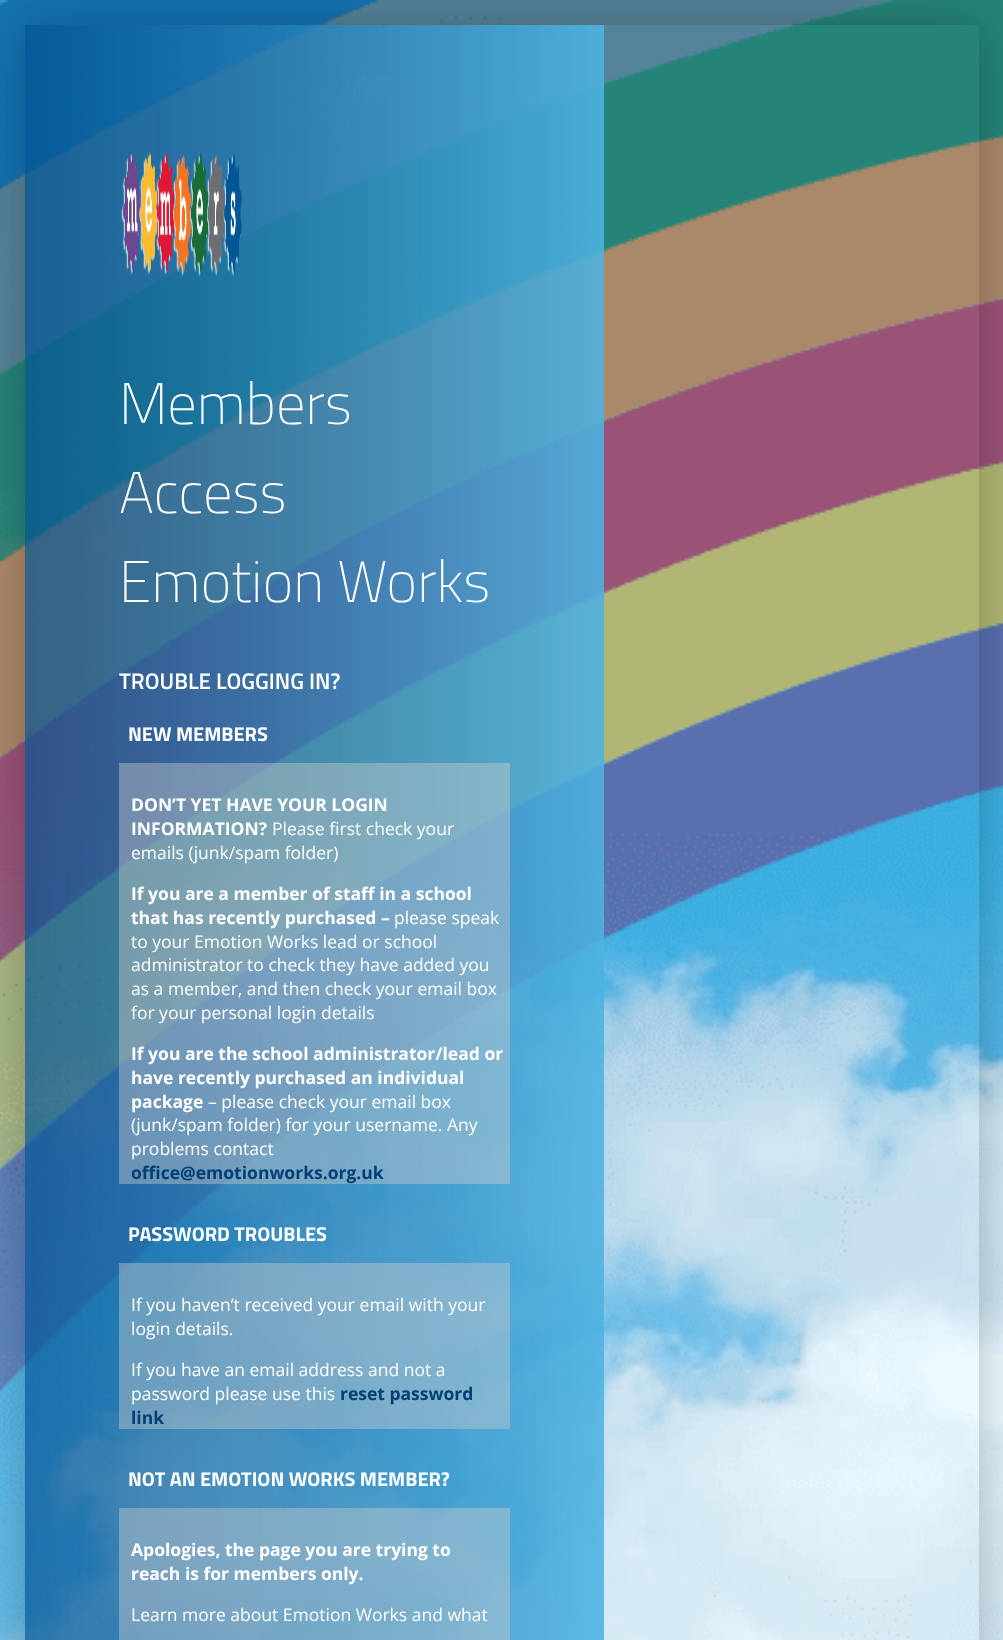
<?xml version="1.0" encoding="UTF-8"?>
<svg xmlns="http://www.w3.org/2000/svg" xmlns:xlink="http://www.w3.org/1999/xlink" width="1003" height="1640">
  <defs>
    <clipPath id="clip1"><path d="M 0 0 h 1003 v 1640 h -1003 z m 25 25 h 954 v 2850 h -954 z" clip-rule="evenodd" /></clipPath>
  </defs>
  <rect width="100%" height="100%" fill="#ffffff" />
  <image x="0" y="0" width="1003" height="1640" xlink:href="image1.png" />
  <g clip-path="url(#clip1)">
    <rect x="25" y="25" width="954" height="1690" fill="#000000" fill-opacity="0.24" filter="blur(25px)" />
  </g>
  <image x="121" y="151" width="121" height="126" xlink:href="image2.png" />
  <rect x="119" y="763" width="391" height="421" fill="#cdcdcd" fill-opacity="0.42" />
  <rect x="119" y="1263" width="391" height="166" fill="#cdcdcd" fill-opacity="0.42" />
  <rect x="119" y="1508" width="391" height="132" fill="#cdcdcd" fill-opacity="0.42" />
  <text x="119" y="424" style="font-family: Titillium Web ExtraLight; font-size: 58.75px; font-weight: 200; fill: #ffffff">Members</text>
  <text x="119" y="513" style="font-family: Titillium Web ExtraLight; font-size: 58.75px; font-weight: 200; fill: #ffffff">Access</text>
  <text x="119" y="602" style="font-family: Titillium Web ExtraLight; font-size: 58.75px; font-weight: 200; fill: #ffffff">Emotion Works</text>
  <text x="119" y="689" style="font-family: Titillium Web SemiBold; font-size: 22.5px; font-weight: 600; fill: #ffffff">TROUBLE LOGGING IN?</text>
  <text x="128" y="741" style="font-family: Titillium Web; font-size: 20px; font-weight: bold; fill: #ffffff">NEW MEMBERS</text>
  <text x="131" y="811" style="font-family: Open Sans; font-size: 17.5px; font-weight: bold; fill: #ffffff">DON’T YET HAVE YOUR LOGIN</text>
  <text x="131" y="835" style="font-family: Open Sans; font-size: 17.5px; font-weight: bold; fill: #ffffff">INFORMATION?</text>
  <text x="272" y="835" style="font-family: Open Sans; font-size: 17.5px; fill: #ffffff">Please first check your</text>
  <text x="131" y="859" style="font-family: Open Sans; font-size: 17.5px; fill: #ffffff">emails (junk/spam folder)</text>
  <text x="131" y="900" style="font-family: Open Sans; font-size: 17.5px; font-weight: bold; fill: #ffffff">If you are a member of staff in a school</text>
  <text x="131" y="924" style="font-family: Open Sans; font-size: 17.5px; font-weight: bold; fill: #ffffff">that has recently purchased –</text>
  <text x="394" y="924" style="font-family: Open Sans; font-size: 17.5px; fill: #ffffff">please speak</text>
  <text x="131" y="948" style="font-family: Open Sans; font-size: 17.5px; fill: #ffffff">to your Emotion Works lead or school</text>
  <text x="131" y="971" style="font-family: Open Sans; font-size: 17.5px; fill: #ffffff">administrator to check they have added you</text>
  <text x="131" y="995" style="font-family: Open Sans; font-size: 17.5px; fill: #ffffff">as a member, and then check your email box</text>
  <text x="131" y="1019" style="font-family: Open Sans; font-size: 17.5px; fill: #ffffff">for your personal login details</text>
  <text x="131" y="1060" style="font-family: Open Sans; font-size: 17.5px; font-weight: bold; fill: #ffffff">If you are the school administrator/lead or</text>
  <text x="131" y="1084" style="font-family: Open Sans; font-size: 17.5px; font-weight: bold; fill: #ffffff">have recently purchased an individual</text>
  <text x="131" y="1108" style="font-family: Open Sans; font-size: 17.5px; font-weight: bold; fill: #ffffff">package</text>
  <text x="208" y="1108" style="font-family: Open Sans; font-size: 17.5px; fill: #ffffff">– please check your email box</text>
  <text x="131" y="1131" style="font-family: Open Sans; font-size: 17.5px; fill: #ffffff">(junk/spam folder) for your username. Any</text>
  <text x="131" y="1155" style="font-family: Open Sans; font-size: 17.5px; fill: #ffffff">problems contact</text>
  <text x="131" y="1179" style="font-family: Open Sans; font-size: 17.5px; font-weight: bold; fill: #003f74">office@emotionworks.org.uk</text>
  <text x="128" y="1241" style="font-family: Titillium Web; font-size: 20px; font-weight: bold; fill: #ffffff">PASSWORD TROUBLES</text>
  <text x="131" y="1311" style="font-family: Open Sans; font-size: 17.5px; fill: #ffffff">If you haven’t received your email with your</text>
  <text x="131" y="1335" style="font-family: Open Sans; font-size: 17.5px; fill: #ffffff">login details.</text>
  <text x="131" y="1376" style="font-family: Open Sans; font-size: 17.5px; fill: #ffffff">If you have an email address and not a</text>
  <text x="131" y="1400" style="font-family: Open Sans; font-size: 17.5px; fill: #ffffff">password please use this</text>
  <text x="340" y="1400" style="font-family: Open Sans; font-size: 17.5px; font-weight: bold; fill: #003f74">reset password</text>
  <text x="131" y="1424" style="font-family: Open Sans; font-size: 17.5px; font-weight: bold; fill: #003f74">link</text>
  <text x="128" y="1486" style="font-family: Titillium Web; font-size: 20px; font-weight: bold; fill: #ffffff">NOT AN EMOTION WORKS MEMBER?</text>
  <text x="131" y="1556" style="font-family: Open Sans; font-size: 17.5px; font-weight: bold; fill: #ffffff">Apologies, the page you are trying to</text>
  <text x="131" y="1580" style="font-family: Open Sans; font-size: 17.5px; font-weight: bold; fill: #ffffff">reach is for members only.</text>
  <text x="131" y="1621" style="font-family: Open Sans; font-size: 17.5px; fill: #ffffff">Learn more about Emotion Works and what</text>
</svg>
